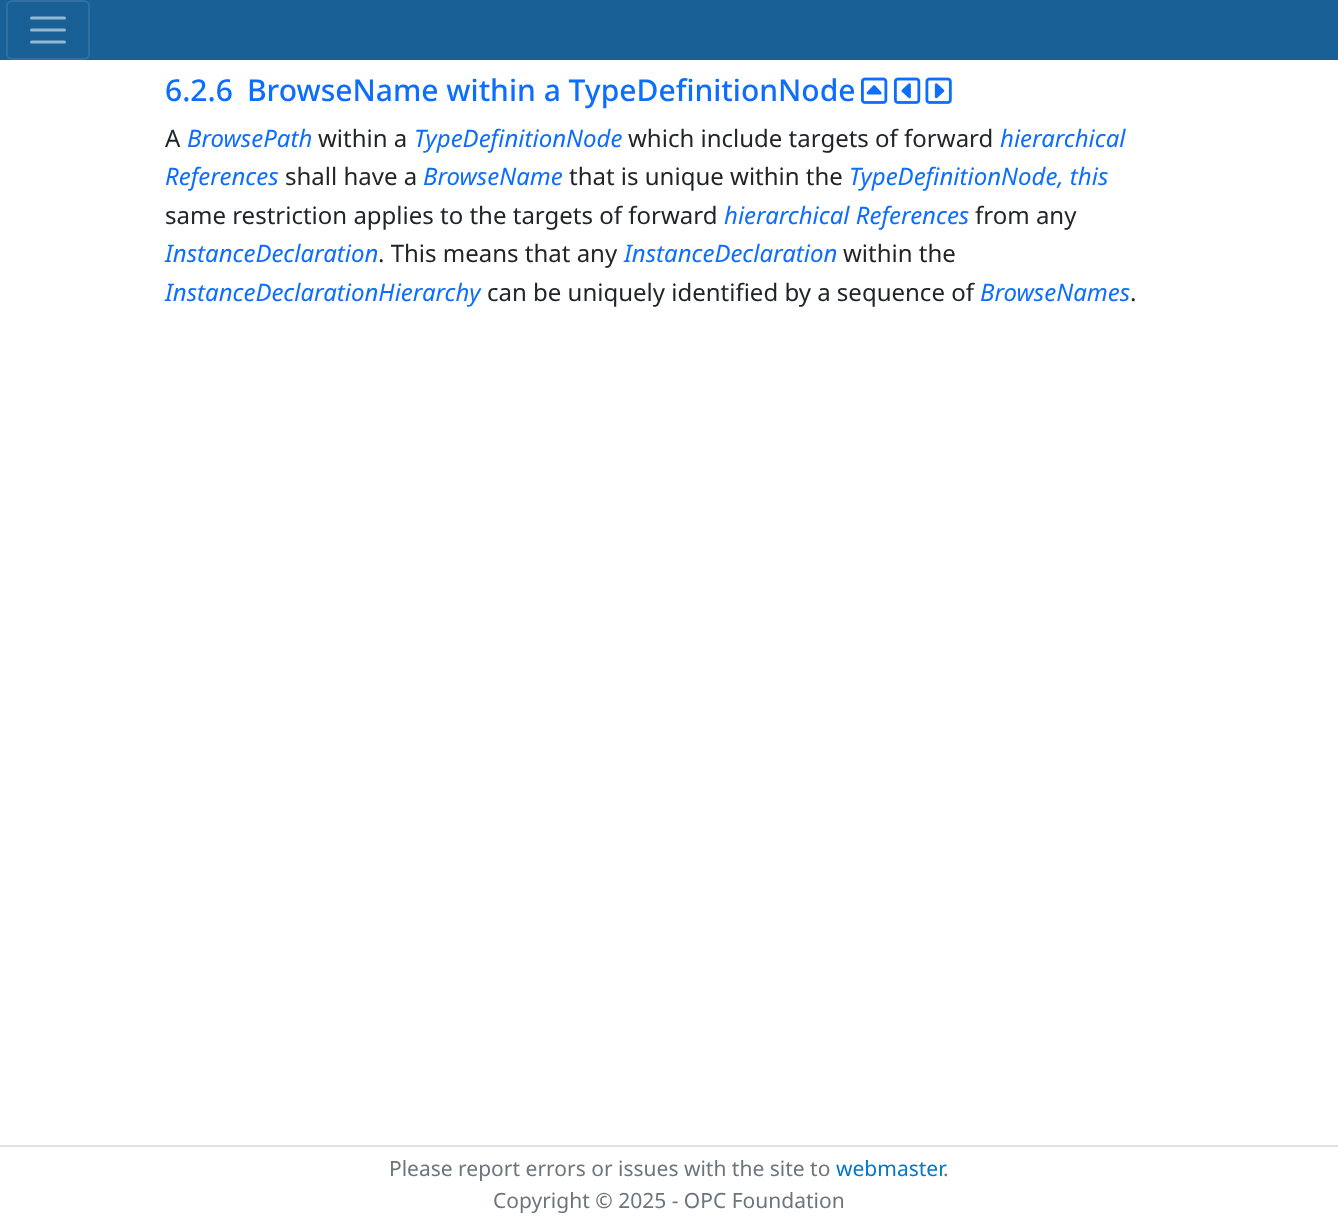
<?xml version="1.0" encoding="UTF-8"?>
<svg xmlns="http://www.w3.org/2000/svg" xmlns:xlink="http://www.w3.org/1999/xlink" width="1338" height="1221">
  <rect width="100%" height="100%" fill="#ffffff" />
  <rect width="1338" height="60" fill="#196096" />
  <rect x="7" y="1" width="82" height="58" rx="5" fill="none" stroke="#3070a1" stroke-width="2" />
  <path d="M 31.5 18 h 33 m -33 12 h 33 m -33 12 h 33" fill="none" stroke="#98b7d0" stroke-width="3" stroke-linecap="round" />
  <image x="861" y="77" width="27" height="27" xlink:href="image1.png" />
  <image x="894" y="77" width="27" height="27" xlink:href="image2.png" />
  <image x="925" y="77" width="27" height="27" xlink:href="image3.png" />
  <rect y="1145" width="1338" height="2" fill="#dee2e6" />
  <text x="165" y="101" style="font-family: Noto Sans; font-size: 30px; font-weight: 500; fill: #0d6efd">6.2.6</text>
  <text x="247" y="101" style="font-family: Noto Sans; font-size: 30px; font-weight: 500; fill: #0d6efd">BrowseName within a TypeDefinitionNode</text>
  <text x="165" y="147" style="font-family: Noto Sans; font-size: 24px; fill: #212529">A</text>
  <text x="187" y="147" style="font-family: Noto Sans; font-size: 24px; font-style: italic; fill: #0d6efd">BrowsePath</text>
  <text x="318" y="147" style="font-family: Noto Sans; font-size: 24px; fill: #212529">within a</text>
  <text x="414" y="147" style="font-family: Noto Sans; font-size: 24px; font-style: italic; fill: #0d6efd">TypeDefinitionNode</text>
  <text x="628" y="147" style="font-family: Noto Sans; font-size: 24px; fill: #212529">which include targets of forward</text>
  <text x="1000" y="147" style="font-family: Noto Sans; font-size: 24px; font-style: italic; fill: #0d6efd">hierarchical</text>
  <text x="165" y="185" style="font-family: Noto Sans; font-size: 24px; font-style: italic; fill: #0d6efd">References</text>
  <text x="285" y="185" style="font-family: Noto Sans; font-size: 24px; fill: #212529">shall have a</text>
  <text x="423" y="185" style="font-family: Noto Sans; font-size: 24px; font-style: italic; fill: #0d6efd">BrowseName</text>
  <text x="569" y="185" style="font-family: Noto Sans; font-size: 24px; fill: #212529">that is unique within the</text>
  <text x="849" y="185" style="font-family: Noto Sans; font-size: 24px; font-style: italic; fill: #0d6efd">TypeDefinitionNode, this</text>
  <text x="165" y="224" style="font-family: Noto Sans; font-size: 24px; fill: #212529">same restriction applies to the targets of forward</text>
  <text x="724" y="224" style="font-family: Noto Sans; font-size: 24px; font-style: italic; fill: #0d6efd">hierarchical References</text>
  <text x="975" y="224" style="font-family: Noto Sans; font-size: 24px; fill: #212529">from any</text>
  <text x="165" y="262" style="font-family: Noto Sans; font-size: 24px; font-style: italic; fill: #0d6efd">InstanceDeclaration</text>
  <text x="378" y="262" style="font-family: Noto Sans; font-size: 24px; fill: #212529">. This means that any</text>
  <text x="624" y="262" style="font-family: Noto Sans; font-size: 24px; font-style: italic; fill: #0d6efd">InstanceDeclaration</text>
  <text x="843" y="262" style="font-family: Noto Sans; font-size: 24px; fill: #212529">within the</text>
  <text x="165" y="301" style="font-family: Noto Sans; font-size: 24px; font-style: italic; fill: #0d6efd">InstanceDeclarationHierarchy</text>
  <text x="487" y="301" style="font-family: Noto Sans; font-size: 24px; fill: #212529">can be uniquely identified by a sequence of</text>
  <text x="980" y="301" style="font-family: Noto Sans; font-size: 24px; font-style: italic; fill: #0d6efd">BrowseNames</text>
  <text x="1130" y="301" style="font-family: Noto Sans; font-size: 24px; fill: #212529">.</text>
  <text x="389" y="1176" style="font-family: Noto Sans; font-size: 21px; fill: #6c757d">Please report errors or issues with the site to</text>
  <text x="836" y="1176" style="font-family: Noto Sans; font-size: 21px; fill: #0077cc">webmaster</text>
  <text x="943" y="1176" style="font-family: Noto Sans; font-size: 21px; fill: #6c757d">.</text>
  <text x="493" y="1208" style="font-family: Noto Sans; font-size: 21px; fill: #6c757d">Copyright © 2025 - OPC Foundation</text>
</svg>
